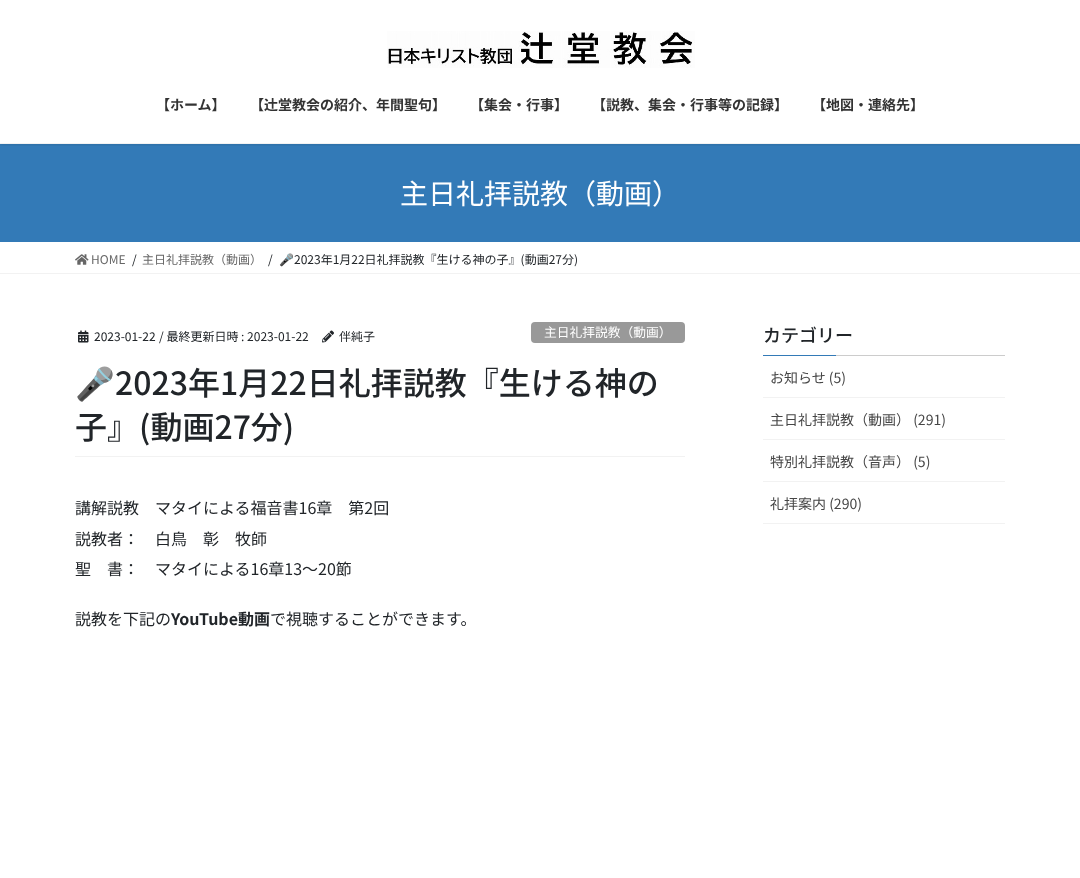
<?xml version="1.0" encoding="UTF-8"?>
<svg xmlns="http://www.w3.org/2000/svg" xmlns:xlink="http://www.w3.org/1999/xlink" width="1080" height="878">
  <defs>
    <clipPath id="clip1"><rect x="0" y="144" width="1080" height="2" /></clipPath>
  </defs>
  <rect width="100%" height="100%" fill="#ffffff" />
  <rect y="144" width="1080" height="98" fill="#337ab7" />
  <g clip-path="url(#clip1)">
    <rect y="1" width="1080" height="144" fill="#000000" fill-opacity="0.1" filter="blur(1.5px)" />
  </g>
  <rect y="143" width="1080" height="1" fill="#f2f2f2" />
  <image x="387" y="31" width="308" height="37" xlink:href="image1.png" />
  <rect y="273" width="1080" height="1" fill="#f2f2f2" />
  <image x="75" y="254" width="14" height="11" xlink:href="image2.png" />
  <rect x="75" y="456" width="610" height="1" fill="#f2f2f2" />
  <image x="78" y="330" width="11" height="13" xlink:href="image3.png" />
  <image x="322" y="330" width="12" height="13" xlink:href="image4.png" />
  <rect x="531" y="322" width="154" height="21" rx="4" fill="#999999" />
  <rect x="836" y="355" width="169" height="1" fill="#cccccc" />
  <rect x="763" y="355" width="73" height="1" fill="#337ab7" />
  <rect x="763" y="397" width="242" height="1" fill="#f2f2f2" />
  <rect x="763" y="439" width="242" height="1" fill="#f2f2f2" />
  <rect x="763" y="481" width="242" height="1" fill="#f2f2f2" />
  <rect x="763" y="523" width="242" height="1" fill="#f2f2f2" />
  <text x="156" y="110" style="font-family: Noto Sans JP; font-size: 14px; font-weight: bold; fill: #333333">【ホーム】</text>
  <text x="250" y="110" style="font-family: Noto Sans JP; font-size: 14px; font-weight: bold; fill: #333333">【辻󠄀堂教会の紹介、年間聖句】</text>
  <text x="470" y="110" style="font-family: Noto Sans JP; font-size: 14px; font-weight: bold; fill: #333333">【集会・行事】</text>
  <text x="592" y="110" style="font-family: Noto Sans JP; font-size: 14px; font-weight: bold; fill: #333333">【説教、集会・行事等の記録】</text>
  <text x="812" y="110" style="font-family: Noto Sans JP; font-size: 14px; font-weight: bold; fill: #333333">【地図・連絡先】</text>
  <text x="400" y="204" style="font-family: Noto Sans JP; font-size: 28px; fill: #ffffff">主日礼拝説教（動画）</text>
  <text x="91" y="264" style="font-family: Noto Sans JP; font-size: 12px; fill: #666666">HOME</text>
  <text x="132" y="264" style="font-family: Noto Sans JP; font-size: 12px; fill: #212529">/</text>
  <text x="142" y="264" style="font-family: Noto Sans JP; font-size: 12px; fill: #666666">主日礼拝説教（動画）</text>
  <text x="268" y="264" style="font-family: Noto Sans JP; font-size: 12px; fill: #212529">/</text>
  <text x="279" y="264" style="font-family: Noto Color Emoji; font-size: 12px; fill: #212529">🎤</text>
  <text x="294" y="264" style="font-family: Noto Sans JP; font-size: 12px; fill: #212529">2023年1月22日礼拝説教『生ける神の子』(動画27分)</text>
  <text x="94" y="341" style="font-family: Noto Sans JP; font-size: 12px; fill: #212529">2023-01-22</text>
  <text x="159" y="341" style="font-family: Noto Sans JP; font-size: 12px; fill: #212529">/ 最終更新日時 : 2023-01-22</text>
  <text x="339" y="341" style="font-family: Noto Sans JP; font-size: 12px; fill: #212529">伴純子</text>
  <text x="544" y="337" style="font-family: Noto Sans JP; font-size: 12.75px; fill: #ffffff">主日礼拝説教（動画）</text>
  <text x="75" y="395" style="font-family: Noto Color Emoji; font-size: 32px; fill: #212529">🎤</text>
  <text x="115" y="395" style="font-family: Noto Sans JP; font-size: 32px; font-weight: 500; fill: #212529">2023年1月22日礼拝説教『生ける神の</text>
  <text x="75" y="439" style="font-family: Noto Sans JP; font-size: 32px; font-weight: 500; fill: #212529">子』(動画27分)</text>
  <text x="75" y="514" style="font-family: Noto Sans JP; font-size: 16px; fill: #212529">講解説教　マタイによる福音書16章　第2回</text>
  <text x="75" y="545" style="font-family: Noto Sans JP; font-size: 16px; fill: #212529">説教者：　白鳥　彰　牧師</text>
  <text x="75" y="575" style="font-family: Noto Sans JP; font-size: 16px; fill: #212529">聖　書：　マタイによる16章13～20節</text>
  <text x="75" y="625" style="font-family: Noto Sans JP; font-size: 16px; fill: #212529">説教を下記の</text>
  <text x="171" y="625" style="font-family: Noto Sans JP; font-size: 16px; font-weight: bold; fill: #212529">YouTube動画</text>
  <text x="270" y="625" style="font-family: Noto Sans JP; font-size: 16px; fill: #212529">で視聴することができます。</text>
  <text x="763" y="342" style="font-family: Noto Sans JP; font-size: 18px; font-weight: 500; fill: #212529">カテゴリー</text>
  <text x="770" y="383" style="font-family: Noto Sans JP; font-size: 14px; fill: #464646">お知らせ (5)</text>
  <text x="770" y="425" style="font-family: Noto Sans JP; font-size: 14px; fill: #464646">主日礼拝説教（動画） (291)</text>
  <text x="770" y="467" style="font-family: Noto Sans JP; font-size: 14px; fill: #464646">特別礼拝説教（音声） (5)</text>
  <text x="770" y="509" style="font-family: Noto Sans JP; font-size: 14px; fill: #464646">礼拝案内 (290)</text>
</svg>
